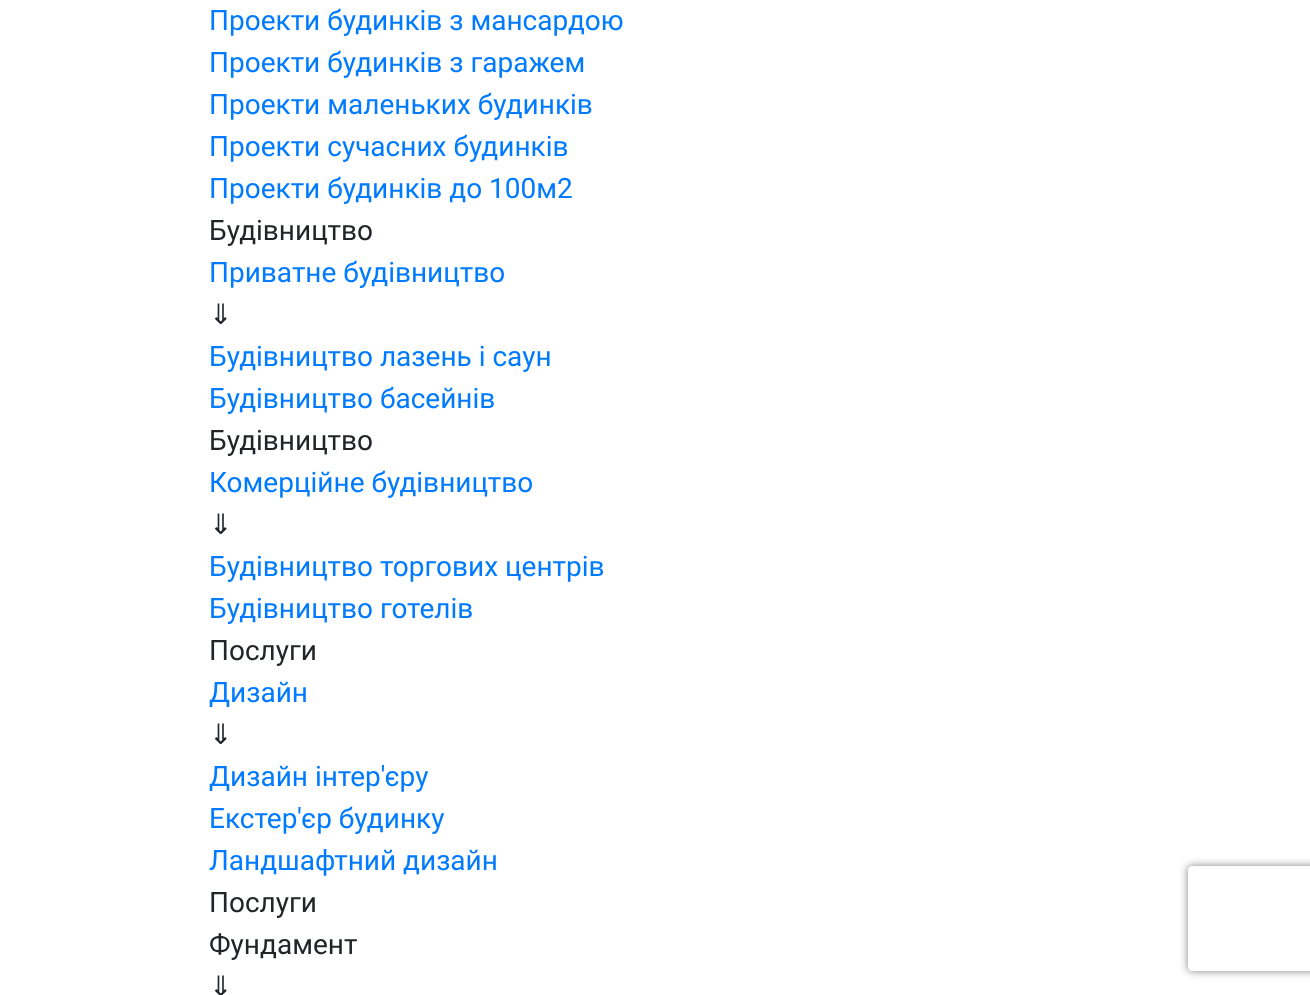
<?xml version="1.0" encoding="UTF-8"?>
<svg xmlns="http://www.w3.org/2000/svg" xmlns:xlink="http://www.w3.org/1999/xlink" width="1310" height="995">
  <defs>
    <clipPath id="clip1"><path d="M 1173 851 h 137 v 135 h -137 z m 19 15 h 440 c 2 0 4 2 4 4 v 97 c 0 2 -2 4 -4 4 h -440 c -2 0 -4 -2 -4 -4 v -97 c 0 -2 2 -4 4 -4 z" clip-rule="evenodd" /></clipPath>
  </defs>
  <rect width="100%" height="100%" fill="#ffffff" />
  <g clip-path="url(#clip1)">
    <rect x="1188" y="866" width="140" height="105" rx="4" fill="#808080" filter="blur(4.5px)" />
  </g>
  <text x="209" y="30" style="font-family: Roboto; font-size: 28px; fill: #007bff">Проекти будинків з мансардою</text>
  <text x="209" y="72" style="font-family: Roboto; font-size: 28px; fill: #007bff">Проекти будинків з гаражем</text>
  <text x="209" y="114" style="font-family: Roboto; font-size: 28px; fill: #007bff">Проекти маленьких будинків</text>
  <text x="209" y="156" style="font-family: Roboto; font-size: 28px; fill: #007bff">Проекти сучасних будинків</text>
  <text x="209" y="198" style="font-family: Roboto; font-size: 28px; fill: #007bff">Проекти будинків до 100м2</text>
  <text x="209" y="240" style="font-family: Roboto; font-size: 28px; fill: #212529">Будівництво</text>
  <text x="209" y="282" style="font-family: Roboto; font-size: 28px; fill: #007bff">Приватне будівництво</text>
  <text x="209" y="324" style="font-family: DejaVu Sans; font-size: 28px; fill: #212529">⇓</text>
  <text x="209" y="366" style="font-family: Roboto; font-size: 28px; fill: #007bff">Будівництво лазень і саун</text>
  <text x="209" y="408" style="font-family: Roboto; font-size: 28px; fill: #007bff">Будівництво басейнів</text>
  <text x="209" y="450" style="font-family: Roboto; font-size: 28px; fill: #212529">Будівництво</text>
  <text x="209" y="492" style="font-family: Roboto; font-size: 28px; fill: #007bff">Комерційне будівництво</text>
  <text x="209" y="534" style="font-family: DejaVu Sans; font-size: 28px; fill: #212529">⇓</text>
  <text x="209" y="576" style="font-family: Roboto; font-size: 28px; fill: #007bff">Будівництво торгових центрів</text>
  <text x="209" y="618" style="font-family: Roboto; font-size: 28px; fill: #007bff">Будівництво готелів</text>
  <text x="209" y="660" style="font-family: Roboto; font-size: 28px; fill: #212529">Послуги</text>
  <text x="209" y="702" style="font-family: Roboto; font-size: 28px; fill: #007bff">Дизайн</text>
  <text x="209" y="744" style="font-family: DejaVu Sans; font-size: 28px; fill: #212529">⇓</text>
  <text x="209" y="786" style="font-family: Roboto; font-size: 28px; fill: #007bff">Дизайн інтер'єру</text>
  <text x="209" y="828" style="font-family: Roboto; font-size: 28px; fill: #007bff">Екстер'єр будинку</text>
  <text x="209" y="870" style="font-family: Roboto; font-size: 28px; fill: #007bff">Ландшафтний дизайн</text>
  <text x="209" y="912" style="font-family: Roboto; font-size: 28px; fill: #212529">Послуги</text>
  <text x="209" y="954" style="font-family: Roboto; font-size: 28px; fill: #212529">Фундамент</text>
  <text x="209" y="996" style="font-family: DejaVu Sans; font-size: 28px; fill: #212529">⇓</text>
</svg>
